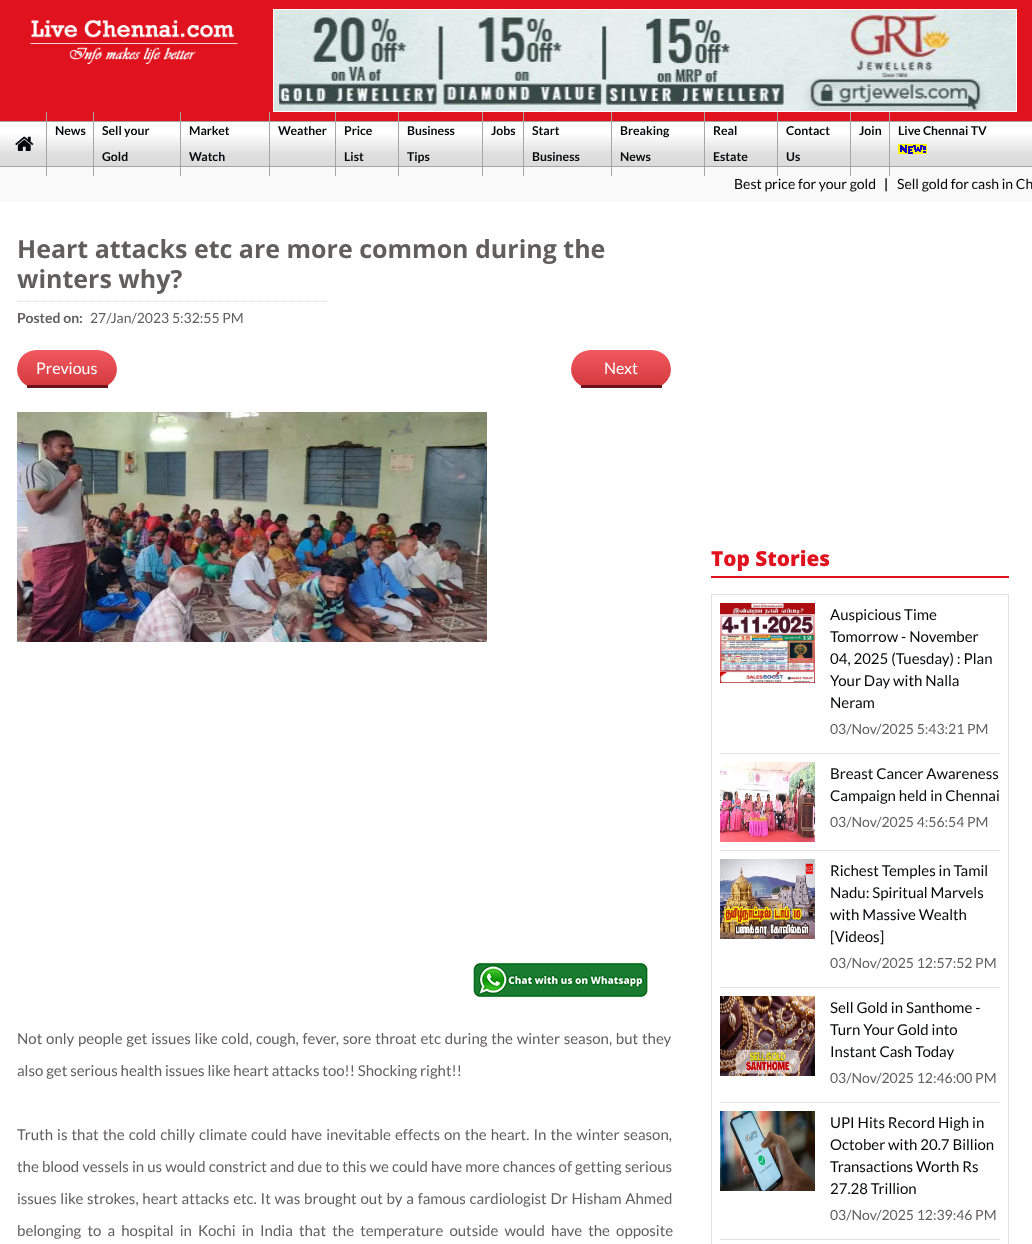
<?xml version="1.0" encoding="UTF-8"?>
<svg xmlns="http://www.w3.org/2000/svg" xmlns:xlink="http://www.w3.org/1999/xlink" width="1032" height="1244">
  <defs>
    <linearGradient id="g1" gradientUnits="userSpaceOnUse" x1="516" y1="122" x2="516" y2="166"><stop offset="0.25" stop-color="#ffffff" /><stop offset="0.71" stop-color="#e0e0e0" /><stop offset="1" stop-color="#dbdbdb" /></linearGradient>
    <clipPath id="clip1"><rect x="17" y="350" width="100" height="38" rx="19" /></clipPath>
    <linearGradient id="g2" gradientUnits="userSpaceOnUse" x1="67" y1="350" x2="67" y2="385"><stop offset="0" stop-color="#f2595e" /><stop offset="1" stop-color="#d43c40" /></linearGradient>
    <linearGradient id="g3" gradientUnits="userSpaceOnUse" x1="67" y1="385" x2="67" y2="420"><stop offset="0" stop-color="#f2595e" /><stop offset="1" stop-color="#d43c40" /></linearGradient>
    <clipPath id="clip2"><rect x="571" y="350" width="100" height="38" rx="19" /></clipPath>
    <linearGradient id="g4" gradientUnits="userSpaceOnUse" x1="621" y1="350" x2="621" y2="385"><stop offset="0" stop-color="#f2595e" /><stop offset="1" stop-color="#d43c40" /></linearGradient>
    <linearGradient id="g5" gradientUnits="userSpaceOnUse" x1="621" y1="385" x2="621" y2="420"><stop offset="0" stop-color="#f2595e" /><stop offset="1" stop-color="#d43c40" /></linearGradient>
  </defs>
  <rect width="100%" height="100%" fill="#ffffff" />
  <rect width="1032" height="121" fill="#e0121e" />
  <image x="30" y="20" width="208" height="44" xlink:href="image1.png" />
  <rect x="273.5" y="9.5" width="743" height="102" fill="none" stroke="#ffffff" />
  <image x="274" y="10" width="742" height="101" xlink:href="image2.png" />
  <rect y="135" width="1032" height="31" fill="url(#g1)" />
  <rect y="121" width="1032" height="1" fill="#a5a5a5" />
  <rect y="166" width="1032" height="1" fill="#a5a5a5" />
  <image x="15" y="136" width="19" height="15" xlink:href="image3.png" />
  <rect y="167" width="1032" height="35" fill="#f9f9f9" />
  <rect x="46" y="112" width="1" height="64" fill="#a5a5a5" />
  <rect x="93" y="112" width="1" height="64" fill="#a5a5a5" />
  <rect x="180" y="112" width="1" height="64" fill="#a5a5a5" />
  <rect x="269" y="112" width="1" height="64" fill="#a5a5a5" />
  <rect x="335" y="112" width="1" height="64" fill="#a5a5a5" />
  <rect x="398" y="112" width="1" height="64" fill="#a5a5a5" />
  <rect x="482" y="112" width="1" height="64" fill="#a5a5a5" />
  <rect x="523" y="112" width="1" height="64" fill="#a5a5a5" />
  <rect x="611" y="112" width="1" height="64" fill="#a5a5a5" />
  <rect x="704" y="112" width="1" height="64" fill="#a5a5a5" />
  <rect x="777" y="112" width="1" height="64" fill="#a5a5a5" />
  <rect x="850" y="112" width="1" height="64" fill="#a5a5a5" />
  <rect x="889" y="112" width="1" height="64" fill="#a5a5a5" />
  <image x="898" y="144" width="29" height="10" xlink:href="image4.png" />
  <path d="M 17 301.5 h 312" fill="none" stroke="#dddddd" stroke-dasharray="1 1" />
  <g clip-path="url(#clip1)">
    <path d="M 36 350 h 62 c 10.5 0 19 8.5 19 19 v 16 h -100 v -16 c 0 -10.5 8.5 -19 19 -19 z" fill="url(#g2)" />
    <rect x="26" y="385" width="1" height="1" fill="url(#g3)" />
  </g>
  <rect x="27" y="385" width="81" height="3" fill="#6a131b" />
  <g clip-path="url(#clip2)">
    <path d="M 590 350 h 62 c 10.5 0 19 8.5 19 19 v 16 h -100 v -16 c 0 -10.5 8.5 -19 19 -19 z" fill="url(#g4)" />
    <rect x="580" y="385" width="1" height="1" fill="url(#g5)" />
  </g>
  <rect x="581" y="385" width="81" height="3" fill="#6a131b" />
  <image x="17" y="412" width="470" height="230" xlink:href="image5.png" />
  <image x="473" y="962" width="175" height="36" xlink:href="image6.png" />
  <rect x="711" y="576" width="298" height="2" fill="#e0121e" />
  <rect x="711.5" y="594.5" width="297" height="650" fill="none" stroke="#e1e1e1" />
  <rect x="720" y="753" width="280" height="1" fill="#e1e1e1" />
  <image x="720" y="603" width="95" height="80" xlink:href="image7.png" />
  <rect x="720" y="850" width="280" height="1" fill="#e1e1e1" />
  <image x="720" y="762" width="95" height="80" xlink:href="image8.png" />
  <rect x="720" y="987" width="280" height="1" fill="#e1e1e1" />
  <image x="720" y="859" width="95" height="80" xlink:href="image9.png" />
  <rect x="720" y="1102" width="280" height="1" fill="#e1e1e1" />
  <image x="720" y="996" width="95" height="80" xlink:href="image10.png" />
  <rect x="720" y="1239" width="280" height="1" fill="#e1e1e1" />
  <image x="720" y="1111" width="95" height="80" xlink:href="image11.png" />
  <text x="55" y="135" style="font-family: Lato; font-size: 12.25px; font-weight: bold; fill: #050708">News</text>
  <text x="102" y="135" style="font-family: Lato; font-size: 12.25px; font-weight: bold; fill: #050708">Sell your</text>
  <text x="102" y="161" style="font-family: Lato; font-size: 12.25px; font-weight: bold; fill: #050708">Gold</text>
  <text x="189" y="135" style="font-family: Lato; font-size: 12.25px; font-weight: bold; fill: #050708">Market</text>
  <text x="189" y="161" style="font-family: Lato; font-size: 12.25px; font-weight: bold; fill: #050708">Watch</text>
  <text x="278" y="135" style="font-family: Lato; font-size: 12.25px; font-weight: bold; fill: #050708">Weather</text>
  <text x="344" y="135" style="font-family: Lato; font-size: 12.25px; font-weight: bold; fill: #050708">Price</text>
  <text x="344" y="161" style="font-family: Lato; font-size: 12.25px; font-weight: bold; fill: #050708">List</text>
  <text x="407" y="135" style="font-family: Lato; font-size: 12.25px; font-weight: bold; fill: #050708">Business</text>
  <text x="407" y="161" style="font-family: Lato; font-size: 12.25px; font-weight: bold; fill: #050708">Tips</text>
  <text x="491" y="135" style="font-family: Lato; font-size: 12.25px; font-weight: bold; fill: #050708">Jobs</text>
  <text x="532" y="135" style="font-family: Lato; font-size: 12.25px; font-weight: bold; fill: #050708">Start</text>
  <text x="532" y="161" style="font-family: Lato; font-size: 12.25px; font-weight: bold; fill: #050708">Business</text>
  <text x="620" y="135" style="font-family: Lato; font-size: 12.25px; font-weight: bold; fill: #050708">Breaking</text>
  <text x="620" y="161" style="font-family: Lato; font-size: 12.25px; font-weight: bold; fill: #050708">News</text>
  <text x="713" y="135" style="font-family: Lato; font-size: 12.25px; font-weight: bold; fill: #050708">Real</text>
  <text x="713" y="161" style="font-family: Lato; font-size: 12.25px; font-weight: bold; fill: #050708">Estate</text>
  <text x="786" y="135" style="font-family: Lato; font-size: 12.25px; font-weight: bold; fill: #050708">Contact</text>
  <text x="786" y="161" style="font-family: Lato; font-size: 12.25px; font-weight: bold; fill: #050708">Us</text>
  <text x="859" y="135" style="font-family: Lato; font-size: 12.25px; font-weight: bold; fill: #050708">Join</text>
  <text x="898" y="135" style="font-family: Lato; font-size: 12.25px; font-weight: bold; fill: #050708">Live Chennai TV</text>
  <text x="734" y="189" style="font-family: Lato; font-size: 14px; fill: #000000">Best price for your gold</text>
  <text x="884" y="189" style="font-family: Lato; font-size: 14px; font-weight: bold; fill: #000000">|</text>
  <text x="897" y="189" style="font-family: Lato; font-size: 14px; fill: #000000">Sell gold for cash in Ch</text>
  <text x="17" y="258" style="font-family: Open Sans; font-size: 25px; font-weight: bold; fill: #615e5e">Heart attacks etc are more common during the</text>
  <text x="17" y="288" style="font-family: Open Sans; font-size: 25px; font-weight: bold; fill: #615e5e">winters why?</text>
  <text x="17" y="323" style="font-family: Lato; font-size: 14px; font-weight: bold; fill: #615e5e">Posted on:</text>
  <text x="90" y="323" style="font-family: Lato; font-size: 14px; fill: #615e5e">27/Jan/2023 5:32:55 PM</text>
  <text x="36" y="374" style="font-family: Lato; font-size: 16px; fill: #ffffff">Previous</text>
  <text x="604" y="374" style="font-family: Lato; font-size: 16px; fill: #ffffff">Next</text>
  <text x="17" y="1044" word-spacing="0.9" style="font-family: Lato; font-size: 15px; fill: #615e5e">Not only people get issues like cold, cough, fever, sore throat etc during the winter season, but they</text>
  <text x="17" y="1076" style="font-family: Lato; font-size: 15px; fill: #615e5e">also get serious health issues like heart attacks too!! Shocking right!!</text>
  <text x="17" y="1140" word-spacing="1.2" style="font-family: Lato; font-size: 15px; fill: #615e5e">Truth is that the cold chilly climate could have inevitable effects on the heart. In the winter season,</text>
  <text x="17" y="1172" word-spacing="0.2" style="font-family: Lato; font-size: 15px; fill: #615e5e">the blood vessels in us would constrict and due to this we could have more chances of getting serious</text>
  <text x="17" y="1204" word-spacing="0.9" style="font-family: Lato; font-size: 15px; fill: #615e5e">issues like strokes, heart attacks etc. It was brought out by a famous cardiologist Dr Hisham Ahmed</text>
  <text x="17" y="1236" word-spacing="3.25" style="font-family: Lato; font-size: 15px; fill: #615e5e">belonging to a hospital in Kochi in India that the temperature outside would have the opposite</text>
  <text x="711" y="566" style="font-family: Open Sans; font-size: 20.75px; font-weight: 800; fill: #e0121e">Top Stories</text>
  <text x="830" y="620" style="font-family: Lato; font-size: 15px; fill: #050708">Auspicious Time</text>
  <text x="830" y="642" style="font-family: Lato; font-size: 15px; fill: #050708">Tomorrow - November</text>
  <text x="830" y="664" style="font-family: Lato; font-size: 15px; fill: #050708">04, 2025 (Tuesday) : Plan</text>
  <text x="830" y="686" style="font-family: Lato; font-size: 15px; fill: #050708">Your Day with Nalla</text>
  <text x="830" y="708" style="font-family: Lato; font-size: 15px; fill: #050708">Neram</text>
  <text x="830" y="734" style="font-family: Lato; font-size: 14px; fill: #615e5e">03/Nov/2025 5:43:21 PM</text>
  <text x="830" y="779" style="font-family: Lato; font-size: 15px; fill: #050708">Breast Cancer Awareness</text>
  <text x="830" y="801" style="font-family: Lato; font-size: 15px; fill: #050708">Campaign held in Chennai</text>
  <text x="830" y="827" style="font-family: Lato; font-size: 14px; fill: #615e5e">03/Nov/2025 4:56:54 PM</text>
  <text x="830" y="876" style="font-family: Lato; font-size: 15px; fill: #050708">Richest Temples in Tamil</text>
  <text x="830" y="898" style="font-family: Lato; font-size: 15px; fill: #050708">Nadu: Spiritual Marvels</text>
  <text x="830" y="920" style="font-family: Lato; font-size: 15px; fill: #050708">with Massive Wealth</text>
  <text x="830" y="942" style="font-family: Lato; font-size: 15px; fill: #050708">[Videos]</text>
  <text x="830" y="968" style="font-family: Lato; font-size: 14px; fill: #615e5e">03/Nov/2025 12:57:52 PM</text>
  <text x="830" y="1013" style="font-family: Lato; font-size: 15px; fill: #050708">Sell Gold in Santhome -</text>
  <text x="830" y="1035" style="font-family: Lato; font-size: 15px; fill: #050708">Turn Your Gold into</text>
  <text x="830" y="1057" style="font-family: Lato; font-size: 15px; fill: #050708">Instant Cash Today</text>
  <text x="830" y="1083" style="font-family: Lato; font-size: 14px; fill: #615e5e">03/Nov/2025 12:46:00 PM</text>
  <text x="830" y="1128" style="font-family: Lato; font-size: 15px; fill: #050708">UPI Hits Record High in</text>
  <text x="830" y="1150" style="font-family: Lato; font-size: 15px; fill: #050708">October with 20.7 Billion</text>
  <text x="830" y="1172" style="font-family: Lato; font-size: 15px; fill: #050708">Transactions Worth Rs</text>
  <text x="830" y="1194" style="font-family: Lato; font-size: 15px; fill: #050708">27.28 Trillion</text>
  <text x="830" y="1220" style="font-family: Lato; font-size: 14px; fill: #615e5e">03/Nov/2025 12:39:46 PM</text>
</svg>
